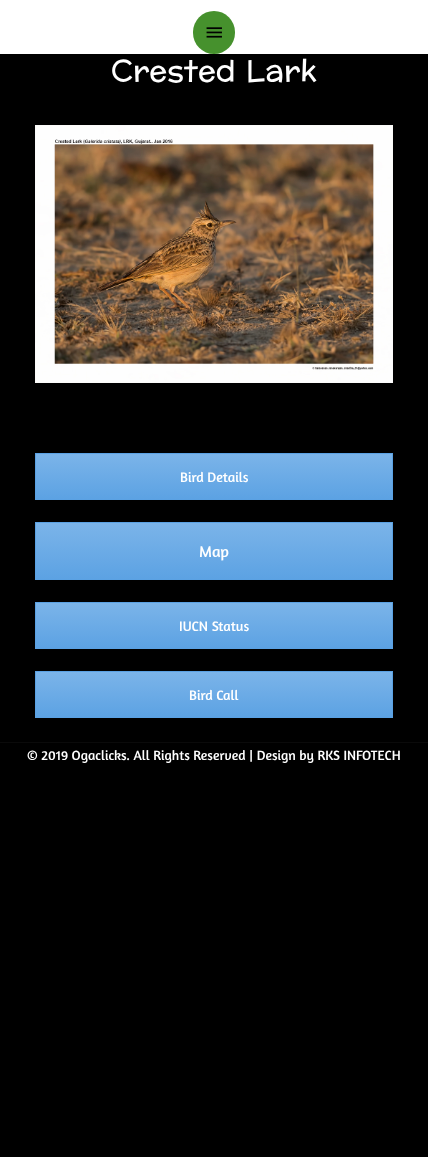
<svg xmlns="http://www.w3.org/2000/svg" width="428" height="1157">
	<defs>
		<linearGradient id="g1" gradientUnits="userSpaceOnUse" x1="214" y1="454" x2="214" y2="499"><stop offset="0" stop-color="#7BB4E9" /><stop offset="1" stop-color="#5CA2E3" /></linearGradient>
		<linearGradient id="g2" gradientUnits="userSpaceOnUse" x1="214" y1="523" x2="214" y2="579"><stop offset="0" stop-color="#7BB4E9" /><stop offset="1" stop-color="#5CA2E3" /></linearGradient>
		<linearGradient id="g3" gradientUnits="userSpaceOnUse" x1="214" y1="603" x2="214" y2="648"><stop offset="0" stop-color="#7BB4E9" /><stop offset="1" stop-color="#5CA2E3" /></linearGradient>
		<linearGradient id="g4" gradientUnits="userSpaceOnUse" x1="214" y1="672" x2="214" y2="717"><stop offset="0" stop-color="#7BB4E9" /><stop offset="1" stop-color="#5CA2E3" /></linearGradient>
	</defs>
	<rect width="100%" height="100%" fill="#000000" />
	<rect x="0" y="0" width="428" height="54" fill="#FFFFFF" />
	<rect x="193" y="11" width="42" height="43" rx="21" fill="#46912D" />
	<image x="206" y="27" width="16" height="11" href="assets/img1.png" />
	<text x="111" y="81" font-family="Preahvihear" font-size="30" fill="#FFFFFF">Crested Lark</text>
	<image x="35" y="125" width="358" height="258" href="assets/img2.png" />
	<rect x="36" y="454" width="356" height="45" fill="url(#g1)" />
	<rect x="35.5" y="453.5" width="357" height="46" fill="none" stroke="#5AA1E3" />
	<text x="180" y="482" font-family="Amaranth" font-size="14" fill="#FFFFFF">Bird Details</text>
	<rect x="36" y="523" width="356" height="56" fill="url(#g2)" />
	<rect x="35.5" y="522.5" width="357" height="57" fill="none" stroke="#5AA1E3" />
	<text x="199" y="557" font-family="Amaranth" font-size="16" fill="#FFFFFF">Map</text>
	<rect x="36" y="603" width="356" height="45" fill="url(#g3)" />
	<rect x="35.5" y="602.5" width="357" height="46" fill="none" stroke="#5AA1E3" />
	<text x="179" y="631" font-family="Amaranth" font-size="14" fill="#FFFFFF">IUCN Status</text>
	<rect x="36" y="672" width="356" height="45" fill="url(#g4)" />
	<rect x="35.5" y="671.5" width="357" height="46" fill="none" stroke="#5AA1E3" />
	<text x="189" y="700" font-family="Amaranth" font-size="14" fill="#FFFFFF">Bird Call</text>
	<rect x="0" y="742" width="428" height="1" fill="#0A0A0A" />
	<text x="27" y="760" font-family="Amaranth" font-size="13.7" fill="#FFFFFF">© 2019 Ogaclicks. All Rights Reserved | Design by RKS INFOTECH</text>
</svg>
